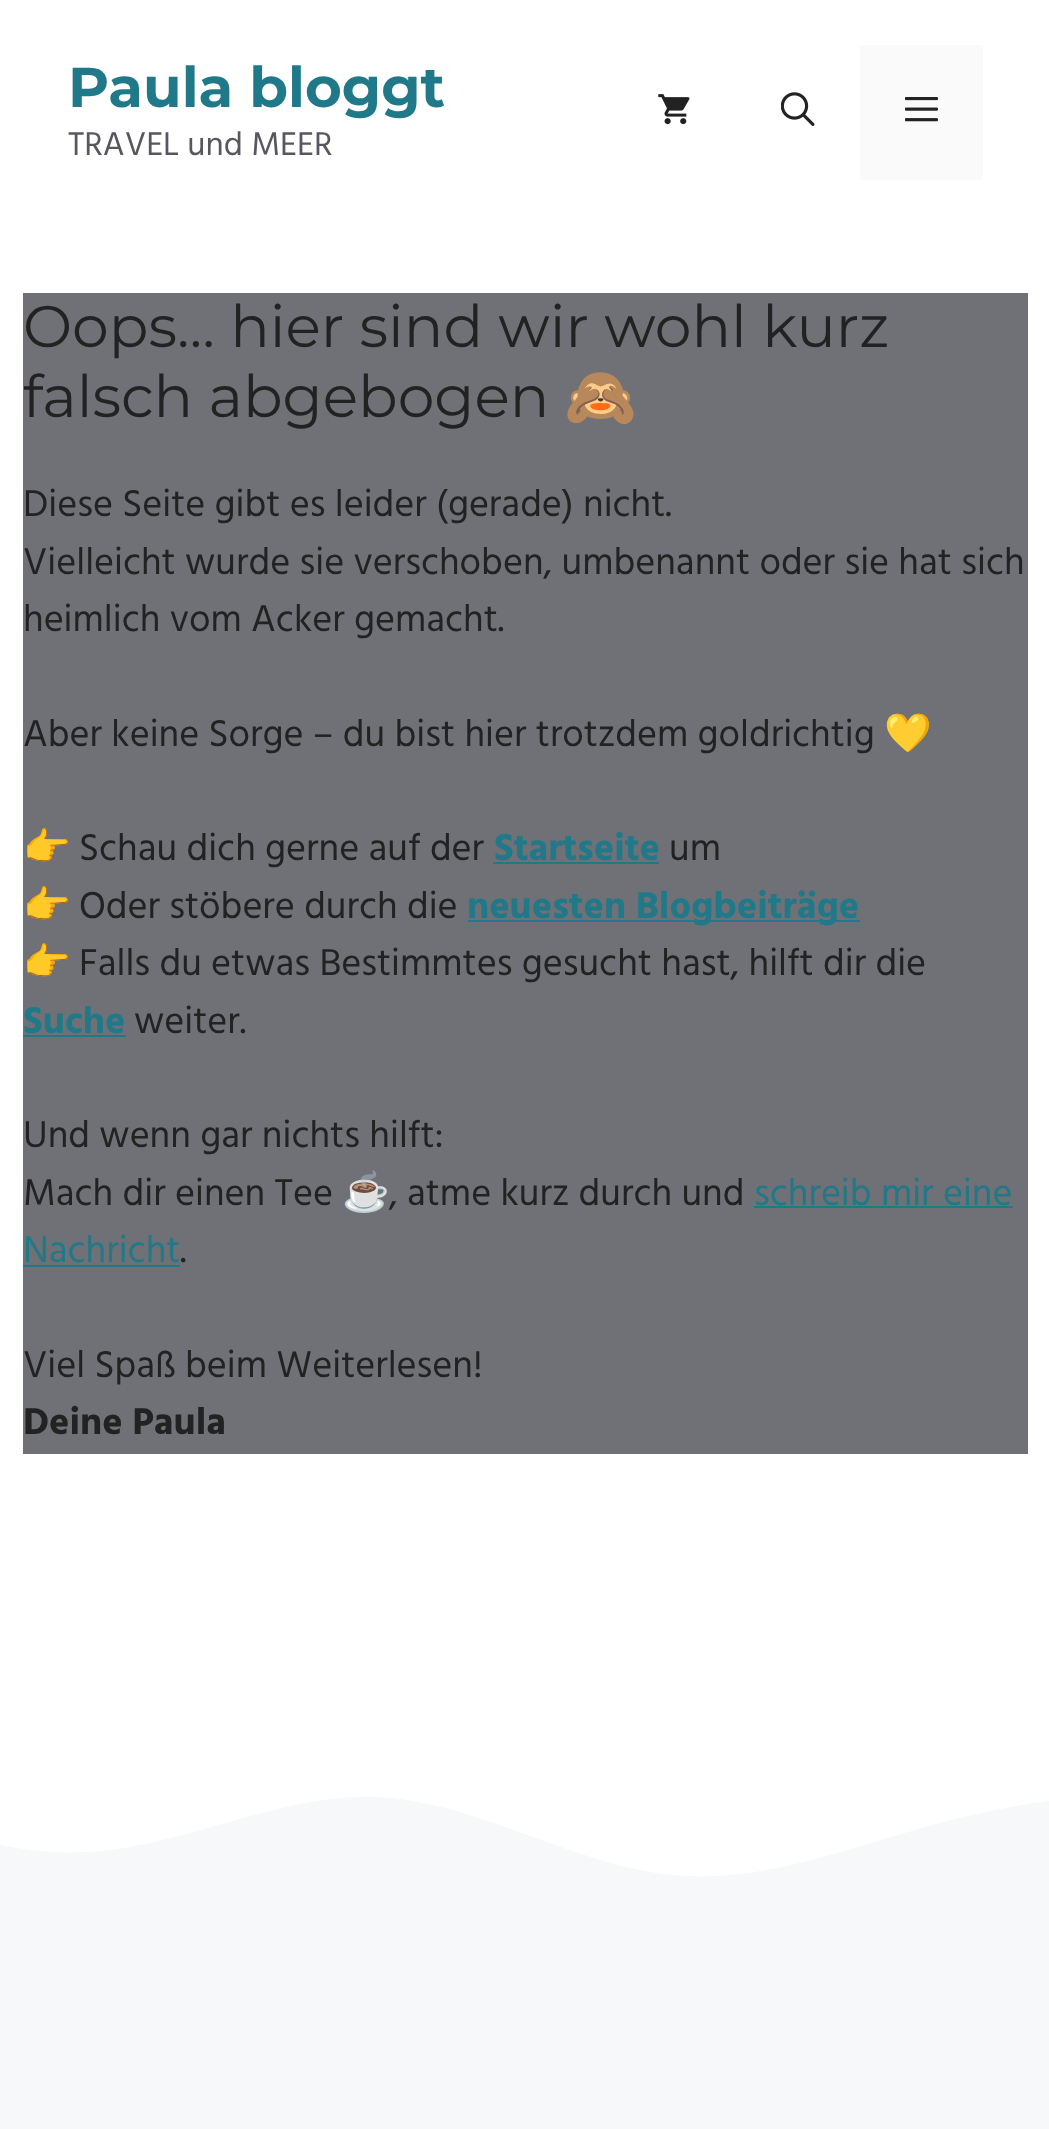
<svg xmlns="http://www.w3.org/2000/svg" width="1049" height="2129">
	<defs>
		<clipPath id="clip1"><rect x="0" y="1744" width="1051" height="135" /></clipPath>
	</defs>
	<rect width="100%" height="100%" fill="#F7F8F9" />
	<rect x="0" y="0" width="1049" height="1744" fill="#FFFFFF" />
	<text x="68" y="107" font-family="Montserrat" font-size="56.25" font-weight="700" fill="#1F7989">Paula bloggt</text>
	<text x="68" y="155" font-family="Hind" font-size="33.75" fill="#575760">TRAVEL und MEER</text>
	<image x="658" y="94" width="32" height="31" href="assets/img1.png" />
	<image x="781" y="92" width="34" height="34" href="assets/img2.png" />
	<rect x="860" y="45" width="123" height="135" fill="#FAFAFA" />
	<image x="905" y="97" width="33" height="25" href="assets/img3.png" />
	<rect x="23" y="293" width="1005" height="1161" fill="#707077" />
	<g font-family="Montserrat" font-size="58.5" fill="#222222">
		<text x="23" y="347">Oops… hier sind wir wohl kurz</text>
		<text x="23" y="417">falsch abgebogen</text>
	</g>
	<text x="564" y="417" font-family="Noto Color Emoji" font-size="58.5" fill="#222222">🙈</text>
	<g font-family="Hind" font-size="38.25" fill="#222222">
		<text x="23" y="516">Diese Seite gibt es leider (gerade) nicht.</text>
		<text x="23" y="574">Vielleicht wurde sie verschoben, umbenannt oder sie hat sich</text>
		<text x="23" y="631">heimlich vom Acker gemacht.</text>
		<text x="23" y="746">Aber keine Sorge – du bist hier trotzdem goldrichtig</text>
	</g>
	<g font-family="Noto Color Emoji" font-size="38.25" fill="#222222">
		<text x="884" y="746">💛</text>
		<text x="23" y="860">👉</text>
	</g>
	<text x="79" y="860" font-family="Hind" font-size="38.25" fill="#222222">Schau dich gerne auf der</text>
	<text x="494" y="860" font-family="Hind" font-size="38.25" font-weight="700" fill="#1F7989">Startseite</text>
	<rect x="493" y="862" width="166" height="2" fill="#1F7989" />
	<text x="669" y="860" font-family="Hind" font-size="38.25" fill="#222222">um</text>
	<text x="23" y="918" font-family="Noto Color Emoji" font-size="38.25" fill="#222222">👉</text>
	<text x="79" y="918" font-family="Hind" font-size="38.25" fill="#222222">Oder stöbere durch die</text>
	<rect x="468" y="920" width="392" height="2" fill="#1F7989" />
	<text x="467" y="918" font-family="Hind" font-size="38.25" font-weight="700" fill="#1F7989">neuesten Blogbeiträge</text>
	<text x="23" y="975" font-family="Noto Color Emoji" font-size="38.25" fill="#222222">👉</text>
	<text x="79" y="975" font-family="Hind" font-size="38.25" fill="#222222">Falls du etwas Bestimmtes gesucht hast, hilft dir die</text>
	<text x="23" y="1033" font-family="Hind" font-size="38.25" font-weight="700" fill="#1F7989">Suche</text>
	<rect x="23" y="1035" width="103" height="2" fill="#1F7989" />
	<g font-family="Hind" font-size="38.25" fill="#222222">
		<text x="134" y="1033">weiter.</text>
		<text x="23" y="1147">Und wenn gar nichts hilft:</text>
		<text x="23" y="1205">Mach dir einen Tee</text>
	</g>
	<text x="342" y="1205" font-family="Noto Color Emoji" font-size="38.25" fill="#222222">☕</text>
	<text x="389" y="1205" font-family="Hind" font-size="38.25" fill="#222222">, atme kurz durch und</text>
	<text x="754" y="1205" font-family="Hind" font-size="38.25" fill="#1F7989">schreib mir eine</text>
	<rect x="754" y="1206" width="259" height="2" fill="#1F7989" />
	<text x="23" y="1262" font-family="Hind" font-size="38.25" fill="#1F7989">Nachricht</text>
	<rect x="23" y="1265" width="157" height="2" fill="#1F7989" />
	<g font-family="Hind" font-size="38.25" fill="#222222">
		<text x="180" y="1262">.</text>
		<text x="23" y="1377">Viel Spaß beim Weiterlesen!</text>
	</g>
	<text x="23" y="1434" font-family="Hind" font-size="38.25" font-weight="700" fill="#222222">Deine Paula</text>
	<g clip-path="url(#clip1)">
		<path d="M-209 1765L-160 1788C-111 1811-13 1857 85 1852C183 1848 281 1792 379 1797C477 1802 576 1866 674 1875C772 1885 870 1838 968 1816C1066 1792 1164 1792 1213 1792H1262V1742H-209Z" fill="#FFFFFF" />
	</g>
</svg>
